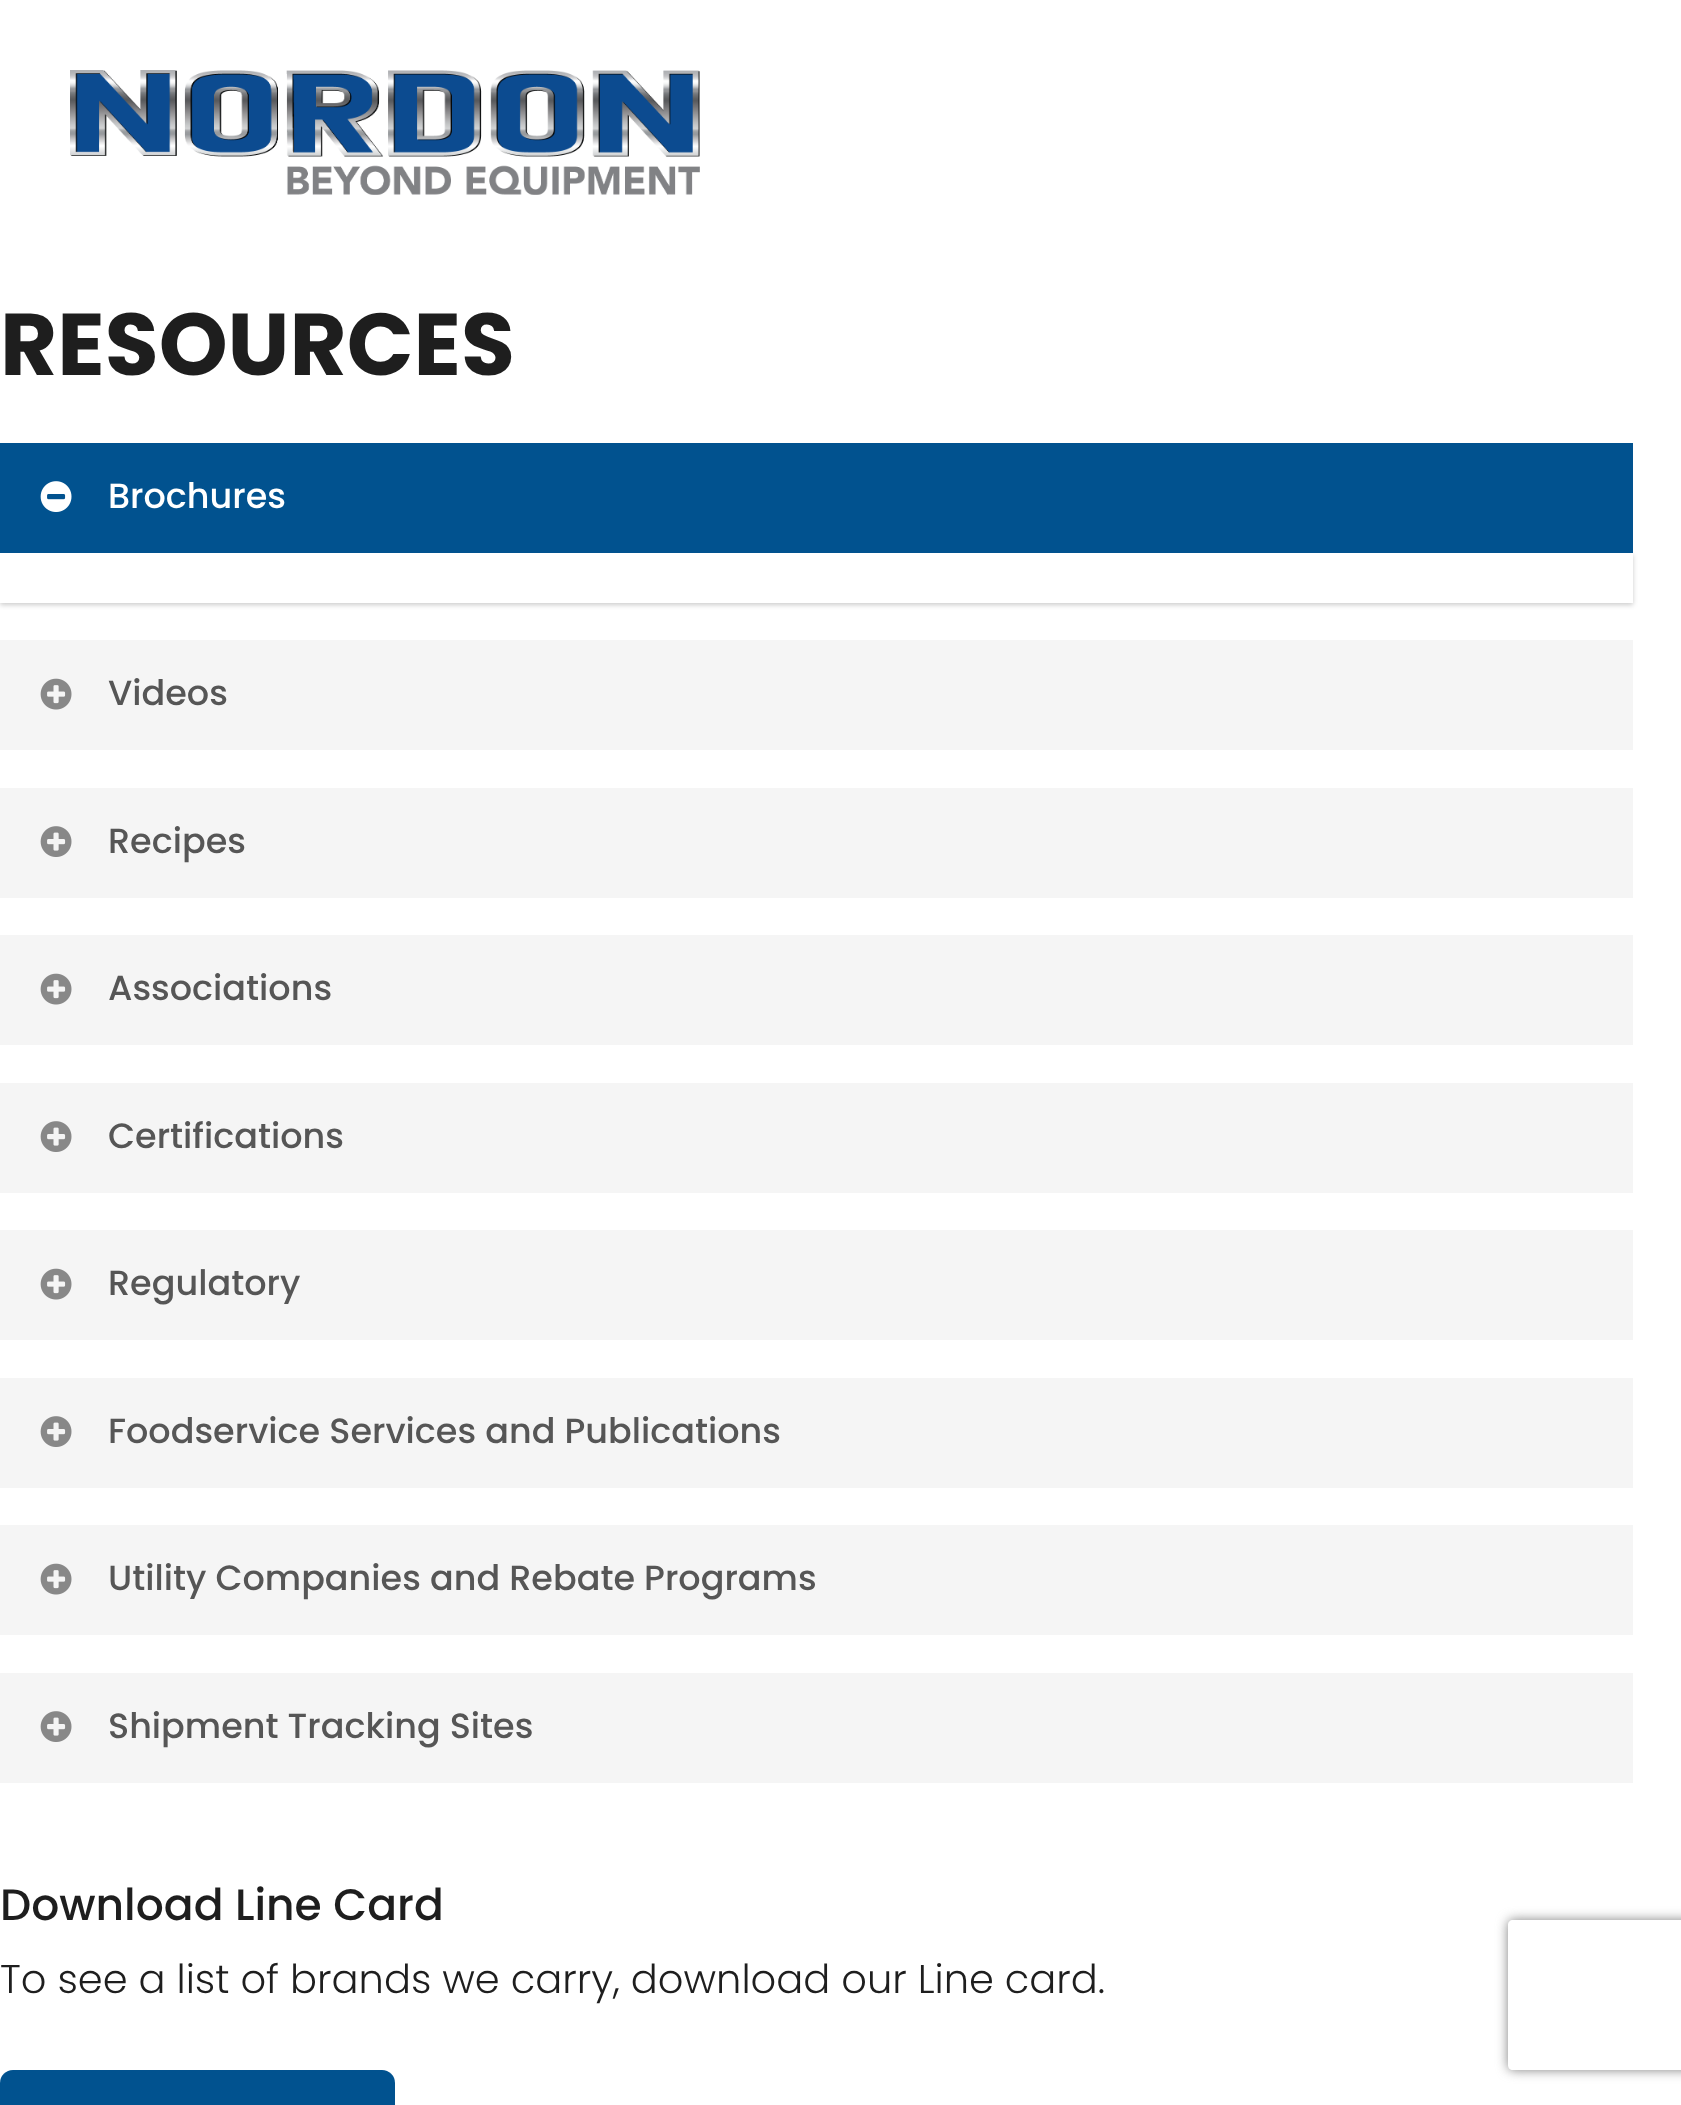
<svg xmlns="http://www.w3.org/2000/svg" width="1681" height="2105">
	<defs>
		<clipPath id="clip1"><path d="M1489 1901H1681V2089H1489ZM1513 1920H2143C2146 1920 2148 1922 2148 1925V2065C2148 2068 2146 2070 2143 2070H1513C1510 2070 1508 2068 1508 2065V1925C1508 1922 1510 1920 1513 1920Z" clip-rule="evenodd" /></clipPath>
	</defs>
	<rect width="100%" height="100%" fill="#FFFFFF" />
	<image x="70" y="70" width="630" height="125" href="assets/img1.png" />
	<text x="0" y="375" font-family="Poppins" font-size="87.75" font-weight="700" fill="#1E1E1E">RESOURCES</text>
	<rect x="0" y="555" width="1633" height="50" fill="#000000" fill-opacity="0.2" filter="blur(2.5px)" />
	<rect x="0" y="443" width="1633" height="110" fill="#01528F" />
	<image x="40" y="481" width="32" height="31" href="assets/img2.png" />
	<text x="108" y="508" font-family="Poppins" font-size="35" font-weight="500" fill="#FFFFFF">Brochures</text>
	<rect x="0" y="553" width="1633" height="50" fill="#FFFFFF" />
	<rect x="0" y="640" width="1633" height="110" fill="#F5F5F5" />
	<image x="40" y="678" width="32" height="32" href="assets/img3.png" />
	<text x="108" y="705" font-family="Poppins" font-size="35" font-weight="500" fill="#565656">Videos</text>
	<rect x="0" y="788" width="1633" height="110" fill="#F5F5F5" />
	<image x="40" y="826" width="32" height="31" href="assets/img4.png" />
	<text x="108" y="853" font-family="Poppins" font-size="35" font-weight="500" fill="#565656">Recipes</text>
	<rect x="0" y="935" width="1633" height="110" fill="#F5F5F5" />
	<image x="40" y="973" width="32" height="32" href="assets/img3.png" />
	<text x="108" y="1000" font-family="Poppins" font-size="35" font-weight="500" fill="#565656">Associations</text>
	<rect x="0" y="1083" width="1633" height="110" fill="#F5F5F5" />
	<image x="40" y="1121" width="32" height="31" href="assets/img4.png" />
	<text x="108" y="1148" font-family="Poppins" font-size="35" font-weight="500" fill="#565656">Certifications</text>
	<rect x="0" y="1230" width="1633" height="110" fill="#F5F5F5" />
	<image x="40" y="1268" width="32" height="32" href="assets/img3.png" />
	<text x="108" y="1295" font-family="Poppins" font-size="35" font-weight="500" fill="#565656">Regulatory</text>
	<rect x="0" y="1378" width="1633" height="110" fill="#F5F5F5" />
	<image x="40" y="1416" width="32" height="31" href="assets/img4.png" />
	<text x="108" y="1443" font-family="Poppins" font-size="35" font-weight="500" fill="#565656">Foodservice Services and Publications</text>
	<rect x="0" y="1525" width="1633" height="110" fill="#F5F5F5" />
	<image x="40" y="1563" width="32" height="32" href="assets/img3.png" />
	<text x="108" y="1590" font-family="Poppins" font-size="35" font-weight="500" fill="#565656">Utility Companies and Rebate Programs</text>
	<rect x="0" y="1673" width="1633" height="110" fill="#F5F5F5" />
	<image x="40" y="1711" width="32" height="31" href="assets/img4.png" />
	<text x="108" y="1738" font-family="Poppins" font-size="35" font-weight="500" fill="#565656">Shipment Tracking Sites</text>
	<text x="0" y="1920" font-family="Poppins" font-size="44" font-weight="500" fill="#1E1E1E">Download Line Card</text>
	<text x="0" y="1993" font-family="Poppins" font-size="40" font-weight="300" fill="#1E1E1E">To see a list of brands we carry, download our Line card.</text>
	<rect x="0" y="2070" width="395" height="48" rx="13" fill="#01528F" />
	<g clip-path="url(#clip1)">
		<rect x="1508" y="1920" width="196" height="150" rx="5" fill="#808080" filter="blur(6px)" />
	</g>
</svg>
